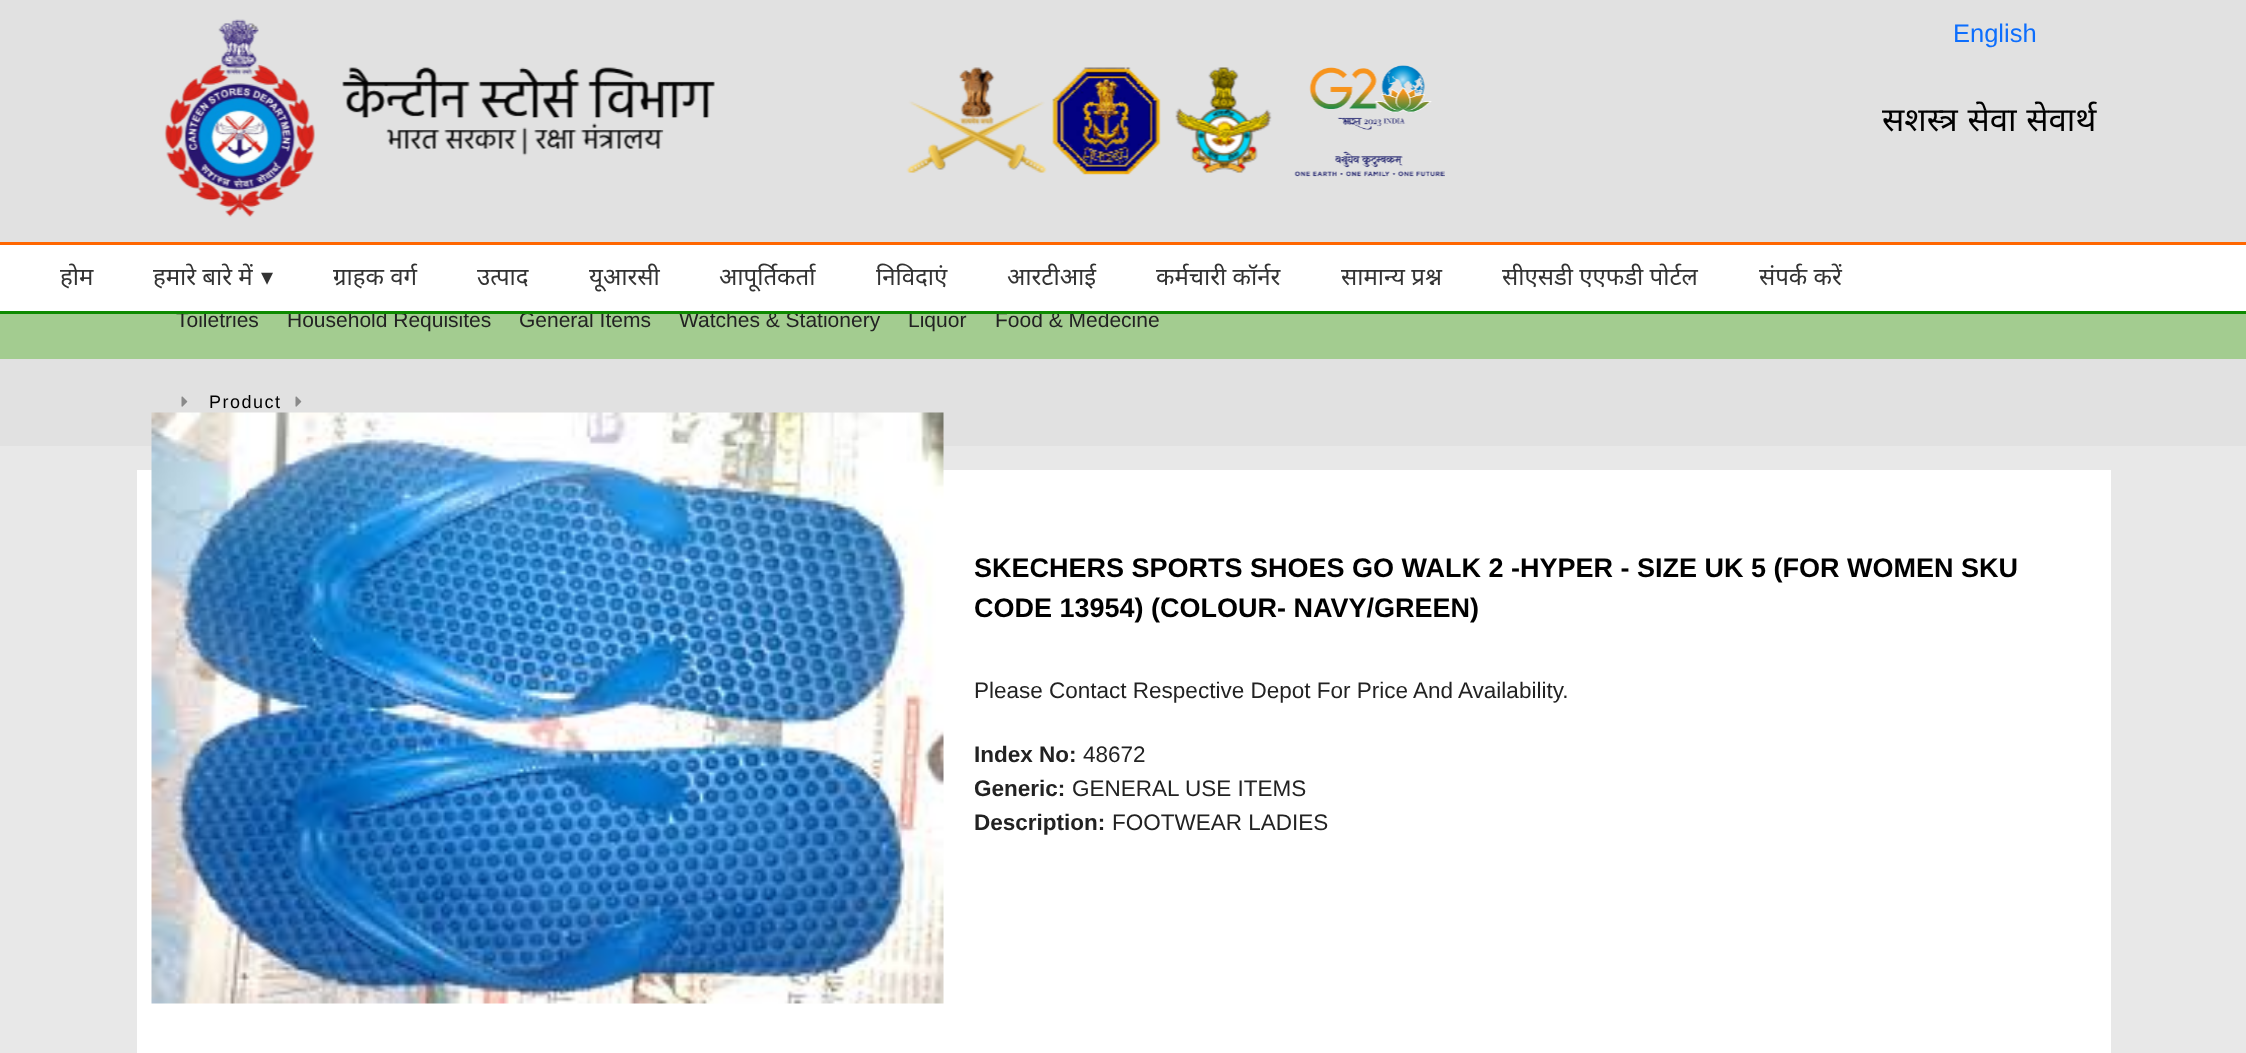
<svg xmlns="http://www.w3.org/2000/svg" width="2246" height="1053">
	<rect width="100%" height="100%" fill="#E8E8E8" />
	<rect x="0" y="0" width="2246" height="242" fill="#E1E1E1" />
	<image x="164" y="19" width="551" height="198" href="assets/img1.png" />
	<text x="1953" y="42" font-family="Liberation Sans" font-size="25.5" fill="#0D6EFD">English</text>
	<image x="906" y="67" width="366" height="108" href="assets/img2.png" />
	<image x="1294" y="65" width="151" height="112" href="assets/img3.png" />
	<text x="1882" y="131" word-spacing="1" font-family="Noto Sans" font-size="33" fill="#000000">सशस्त्र सेवा सेवार्थ</text>
	<rect x="0" y="245" width="2246" height="66" fill="#FFFFFF" />
	<rect x="0" y="242" width="2246" height="3" fill="#FF6600" />
	<rect x="0" y="314" width="2246" height="45" fill="#A3CC90" />
	<g font-family="Liberation Sans" font-size="21" fill="#222222">
		<text x="176" y="327">Toiletries</text>
		<text x="287" y="327">Household Requisites</text>
		<text x="519" y="327">General Items</text>
		<text x="679" y="327">Watches &amp; Stationery</text>
		<text x="908" y="327">Liquor</text>
		<text x="995" y="327">Food &amp; Medecine</text>
	</g>
	<rect x="0" y="311" width="2246" height="3" fill="#0D8A00" />
	<g font-family="Noto Sans" font-size="24" fill="#333333">
		<text x="60" y="285">होम</text>
		<text x="153" y="285">हमारे बारे में</text>
	</g>
	<text x="261" y="285" font-family="DejaVu Sans" font-size="24" fill="#333333">▾</text>
	<g font-family="Noto Sans" font-size="24" fill="#333333">
		<text x="333" y="285">ग्राहक वर्ग</text>
		<text x="477" y="285">उत्पाद</text>
		<text x="589" y="285">यूआरसी</text>
		<text x="719" y="285">आपूर्तिकर्ता</text>
		<text x="876" y="285">निविदाएं</text>
		<text x="1007" y="285">आरटीआई</text>
		<text x="1156" y="285">कर्मचारी कॉर्नर</text>
		<text x="1341" y="285">सामान्य प्रश्न</text>
		<text x="1502" y="285">सीएसडी एएफडी पोर्टल</text>
		<text x="1759" y="285">संपर्क करें</text>
	</g>
	<rect x="0" y="359" width="2246" height="87" fill="#E1E1E1" />
	<image x="181" y="396" width="7" height="11" href="assets/img4.png" />
	<text x="209" y="408" font-family="Liberation Sans" font-size="18" letter-spacing="1.5" fill="#000000">Product</text>
	<image x="295" y="396" width="7" height="11" href="assets/img4.png" />
	<rect x="137" y="470" width="1974" height="583" fill="#FFFFFF" />
	<image x="151" y="412" width="793" height="592" href="assets/img5.png" />
	<g font-family="Liberation Sans" font-size="27" font-weight="700" fill="#000000">
		<text x="974" y="577">SKECHERS SPORTS SHOES GO WALK 2 -HYPER - SIZE UK 5 (FOR WOMEN SKU</text>
		<text x="974" y="617">CODE 13954) (COLOUR- NAVY/GREEN)</text>
	</g>
	<text x="974" y="698" font-family="Liberation Sans" font-size="22.5" fill="#222222">Please Contact Respective Depot For Price And Availability.</text>
	<text x="974" y="762" font-family="Liberation Sans" font-size="22.5" font-weight="700" fill="#222222">Index No:</text>
	<text x="1083" y="762" font-family="Liberation Sans" font-size="22.5" fill="#222222">48672</text>
	<text x="974" y="796" font-family="Liberation Sans" font-size="22.5" font-weight="700" fill="#222222">Generic:</text>
	<text x="1072" y="796" font-family="Liberation Sans" font-size="22.5" fill="#222222">GENERAL USE ITEMS</text>
	<text x="974" y="830" font-family="Liberation Sans" font-size="22.5" font-weight="700" fill="#222222">Description:</text>
	<text x="1112" y="830" font-family="Liberation Sans" font-size="22.5" fill="#222222">FOOTWEAR LADIES</text>
</svg>
